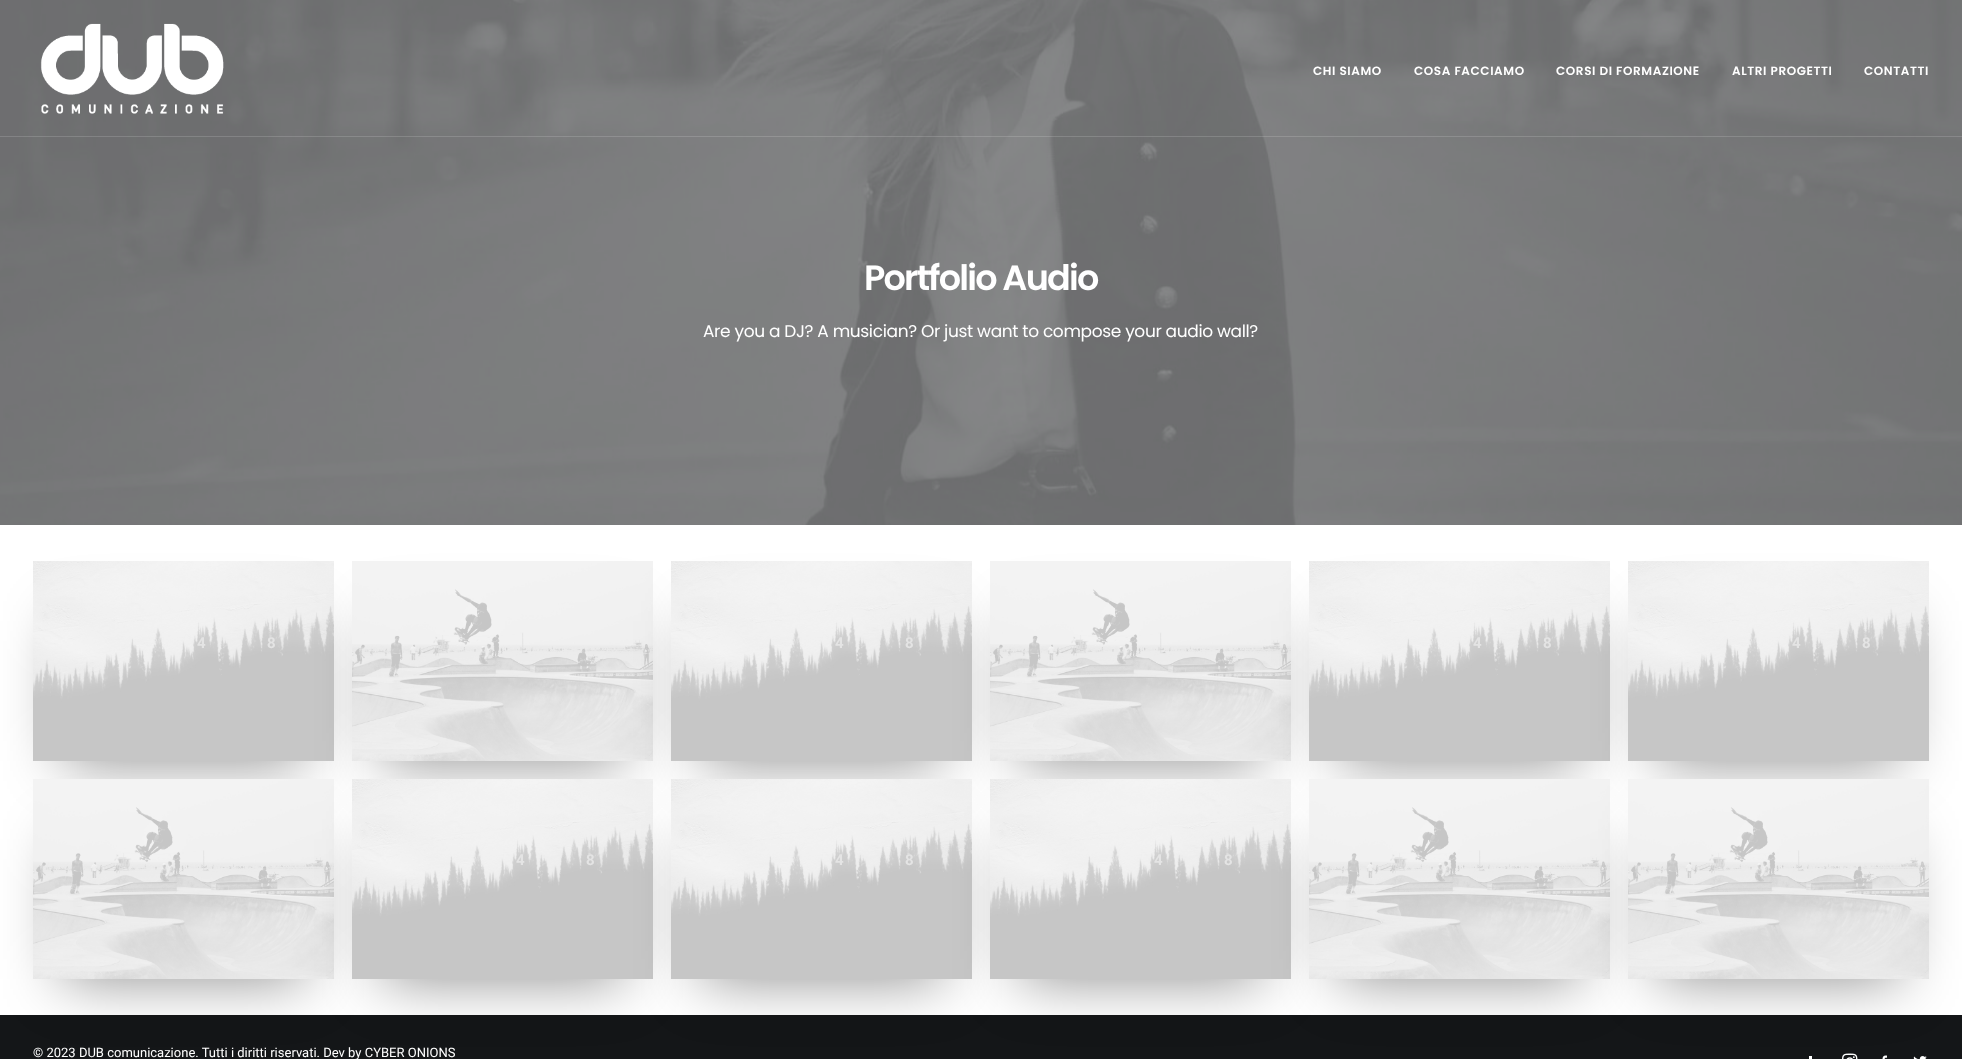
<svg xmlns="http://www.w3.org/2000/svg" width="1962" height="1059">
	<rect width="100%" height="100%" fill="#141618" />
	<image x="0" y="0" width="1962" height="525" href="assets/img2.png" />
	<rect x="0" y="136" width="1962" height="1" fill="#FFFFFF" fill-opacity="0.15" />
	<image x="40" y="23" width="184" height="91" href="assets/img1.png" />
	<g font-family="Poppins" font-size="12" font-weight="600" letter-spacing="0.6" fill="#FFFFFF">
		<text x="1313" y="75">CHI SIAMO</text>
		<text x="1414" y="75">COSA FACCIAMO</text>
		<text x="1556" y="75">CORSI DI FORMAZIONE</text>
		<text x="1732" y="75">ALTRI PROGETTI</text>
		<text x="1864" y="75">CONTATTI</text>
	</g>
	<text x="864" y="290" font-family="Poppins" font-size="35" font-weight="600" letter-spacing="-1.75" fill="#FFFFFF">Portfolio Audio</text>
	<text x="703" y="337" font-family="Poppins" font-size="17" letter-spacing="-0.35" fill="#FFFFFF">Are you a DJ? A musician? Or just want to compose your audio wall?</text>
	<rect x="0" y="525" width="1962" height="490" fill="#FFFFFF" />
	<rect x="63" y="621" width="241" height="140" fill="#000000" fill-opacity="0.45" filter="blur(30px)" />
	<image x="33" y="561" width="301" height="200" href="assets/img3.png" />
	<g font-family="Roboto" font-size="15" font-weight="700" fill="#E4E4E4">
		<text x="197" y="648">4</text>
		<text x="267" y="648">8</text>
	</g>
	<rect x="382" y="621" width="241" height="140" fill="#000000" fill-opacity="0.45" filter="blur(30px)" />
	<image x="352" y="561" width="301" height="200" href="assets/img4.png" />
	<rect x="701" y="621" width="241" height="140" fill="#000000" fill-opacity="0.45" filter="blur(30px)" />
	<image x="671" y="561" width="301" height="200" href="assets/img3.png" />
	<g font-family="Roboto" font-size="15" font-weight="700" fill="#E4E4E4">
		<text x="835" y="648">4</text>
		<text x="905" y="648">8</text>
	</g>
	<rect x="1020" y="621" width="241" height="140" fill="#000000" fill-opacity="0.45" filter="blur(30px)" />
	<image x="990" y="561" width="301" height="200" href="assets/img4.png" />
	<rect x="1339" y="621" width="241" height="140" fill="#000000" fill-opacity="0.45" filter="blur(30px)" />
	<image x="1309" y="561" width="301" height="200" href="assets/img3.png" />
	<g font-family="Roboto" font-size="15" font-weight="700" fill="#E4E4E4">
		<text x="1473" y="648">4</text>
		<text x="1543" y="648">8</text>
	</g>
	<rect x="1658" y="621" width="241" height="140" fill="#000000" fill-opacity="0.45" filter="blur(30px)" />
	<image x="1628" y="561" width="301" height="200" href="assets/img3.png" />
	<g font-family="Roboto" font-size="15" font-weight="700" fill="#E4E4E4">
		<text x="1792" y="648">4</text>
		<text x="1862" y="648">8</text>
	</g>
	<rect x="63" y="839" width="241" height="140" fill="#000000" fill-opacity="0.45" filter="blur(30px)" />
	<image x="33" y="779" width="301" height="200" href="assets/img5.png" />
	<rect x="382" y="839" width="241" height="140" fill="#000000" fill-opacity="0.45" filter="blur(30px)" />
	<image x="352" y="779" width="301" height="200" href="assets/img6.png" />
	<g font-family="Roboto" font-size="15" font-weight="700" fill="#E4E4E4">
		<text x="516" y="865">4</text>
		<text x="586" y="865">8</text>
	</g>
	<rect x="701" y="839" width="241" height="140" fill="#000000" fill-opacity="0.45" filter="blur(30px)" />
	<image x="671" y="779" width="301" height="200" href="assets/img6.png" />
	<g font-family="Roboto" font-size="15" font-weight="700" fill="#E4E4E4">
		<text x="835" y="865">4</text>
		<text x="905" y="865">8</text>
	</g>
	<rect x="1020" y="839" width="241" height="140" fill="#000000" fill-opacity="0.45" filter="blur(30px)" />
	<image x="990" y="779" width="301" height="200" href="assets/img6.png" />
	<g font-family="Roboto" font-size="15" font-weight="700" fill="#E4E4E4">
		<text x="1154" y="865">4</text>
		<text x="1224" y="865">8</text>
	</g>
	<rect x="1339" y="839" width="241" height="140" fill="#000000" fill-opacity="0.45" filter="blur(30px)" />
	<image x="1309" y="779" width="301" height="200" href="assets/img5.png" />
	<rect x="1658" y="839" width="241" height="140" fill="#000000" fill-opacity="0.45" filter="blur(30px)" />
	<image x="1628" y="779" width="301" height="200" href="assets/img5.png" />
	<text x="33" y="1057" font-family="Roboto" font-size="13" fill="#FFFFFF">© 2023 DUB comunicazione. Tutti i diritti riservati. Dev by CYBER ONIONS</text>
	<rect x="1809" y="1056" width="3" height="3" fill="#FFFFFF" />
	<image x="1842" y="1053" width="16" height="6" href="assets/img7.png" />
	<image x="1882" y="1055" width="5" height="4" href="assets/img8.png" />
	<image x="1913" y="1056" width="14" height="3" href="assets/img9.png" />
</svg>
